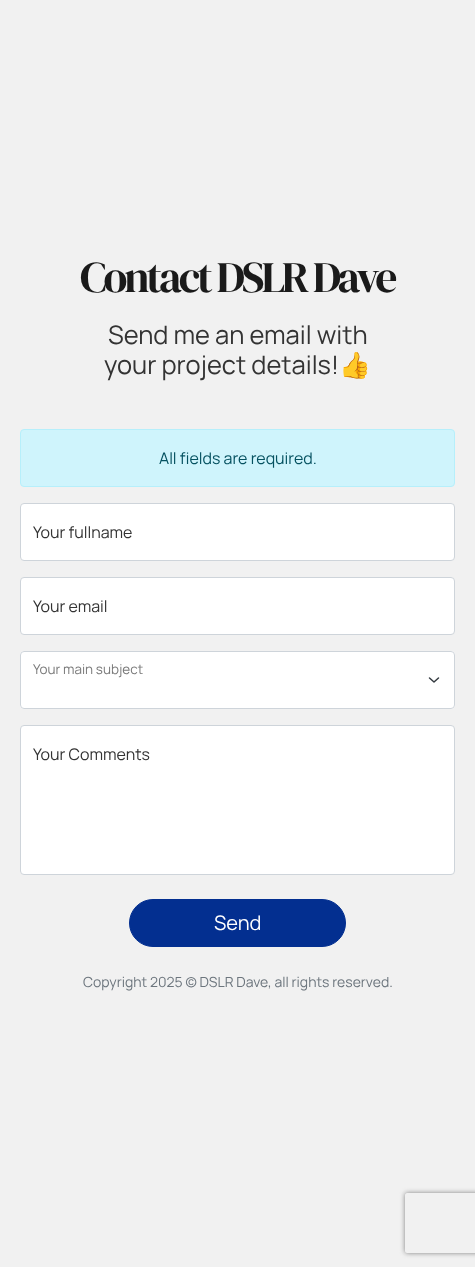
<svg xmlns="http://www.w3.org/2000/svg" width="475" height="1267">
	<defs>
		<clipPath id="clip1"><path d="M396 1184H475V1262H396ZM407 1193H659C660 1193 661 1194 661 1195V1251C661 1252 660 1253 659 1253H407C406 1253 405 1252 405 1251V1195C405 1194 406 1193 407 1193Z" clip-rule="evenodd" /></clipPath>
	</defs>
	<rect width="100%" height="100%" fill="#F1F1F1" />
	<text x="80" y="292" font-family="DM Serif Display" font-size="43.75" letter-spacing="-3" fill="#1A1A1A">Contact DSLR Dave</text>
	<g font-family="Manrope" font-size="25.5" fill="#333333">
		<text x="108" y="344">Send me an email with</text>
		<text x="104" y="374">your project details!</text>
	</g>
	<text x="339" y="374" font-family="Noto Color Emoji" font-size="25.5" fill="#333333">👍</text>
	<rect x="20.5" y="429.5" width="434" height="57" rx="3.5" fill="#CFF4FC" stroke="#B6EFFB" />
	<text x="159" y="464" font-family="Manrope" font-size="16" fill="#055160">All fields are required.</text>
	<rect x="20.5" y="503.5" width="434" height="57" rx="3.5" fill="#FFFFFF" stroke="#CED4DA" />
	<text x="33" y="538" font-family="Manrope" font-size="16" fill="#333333">Your fullname</text>
	<rect x="20.5" y="577.5" width="434" height="57" rx="3.5" fill="#FFFFFF" stroke="#CED4DA" />
	<text x="33" y="612" font-family="Manrope" font-size="16" fill="#333333">Your email</text>
	<rect x="20" y="651" width="435" height="58" rx="4" fill="#FFFFFF" />
	<path d="M429.5 678L434 682L438.5 678" fill="none" stroke="#343A40" stroke-width="1.5" stroke-linecap="round" stroke-linejoin="round" />
	<rect x="20.5" y="651.5" width="434" height="57" rx="3.5" fill="none" stroke="#CED4DA" />
	<text x="33" y="674" font-family="Manrope" font-size="13.5" fill="#7A7A7A">Your main subject</text>
	<rect x="20.5" y="725.5" width="434" height="149" rx="3.5" fill="#FFFFFF" stroke="#CED4DA" />
	<text x="33" y="760" font-family="Manrope" font-size="16" fill="#333333">Your Comments</text>
	<rect x="129.5" y="899.5" width="216" height="47" rx="23.5" fill="#032F90" stroke="#032F90" />
	<text x="214" y="930" font-family="Manrope" font-size="20" fill="#FFFFFF">Send</text>
	<g clip-path="url(#clip1)">
		<rect x="405" y="1193" width="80" height="60" rx="2" fill="#808080" filter="blur(2.5px)" />
	</g>
	<text x="83" y="987" font-family="Manrope" font-size="14" fill="#6C757D">Copyright 2025 © DSLR Dave, all rights reserved.</text>
</svg>
